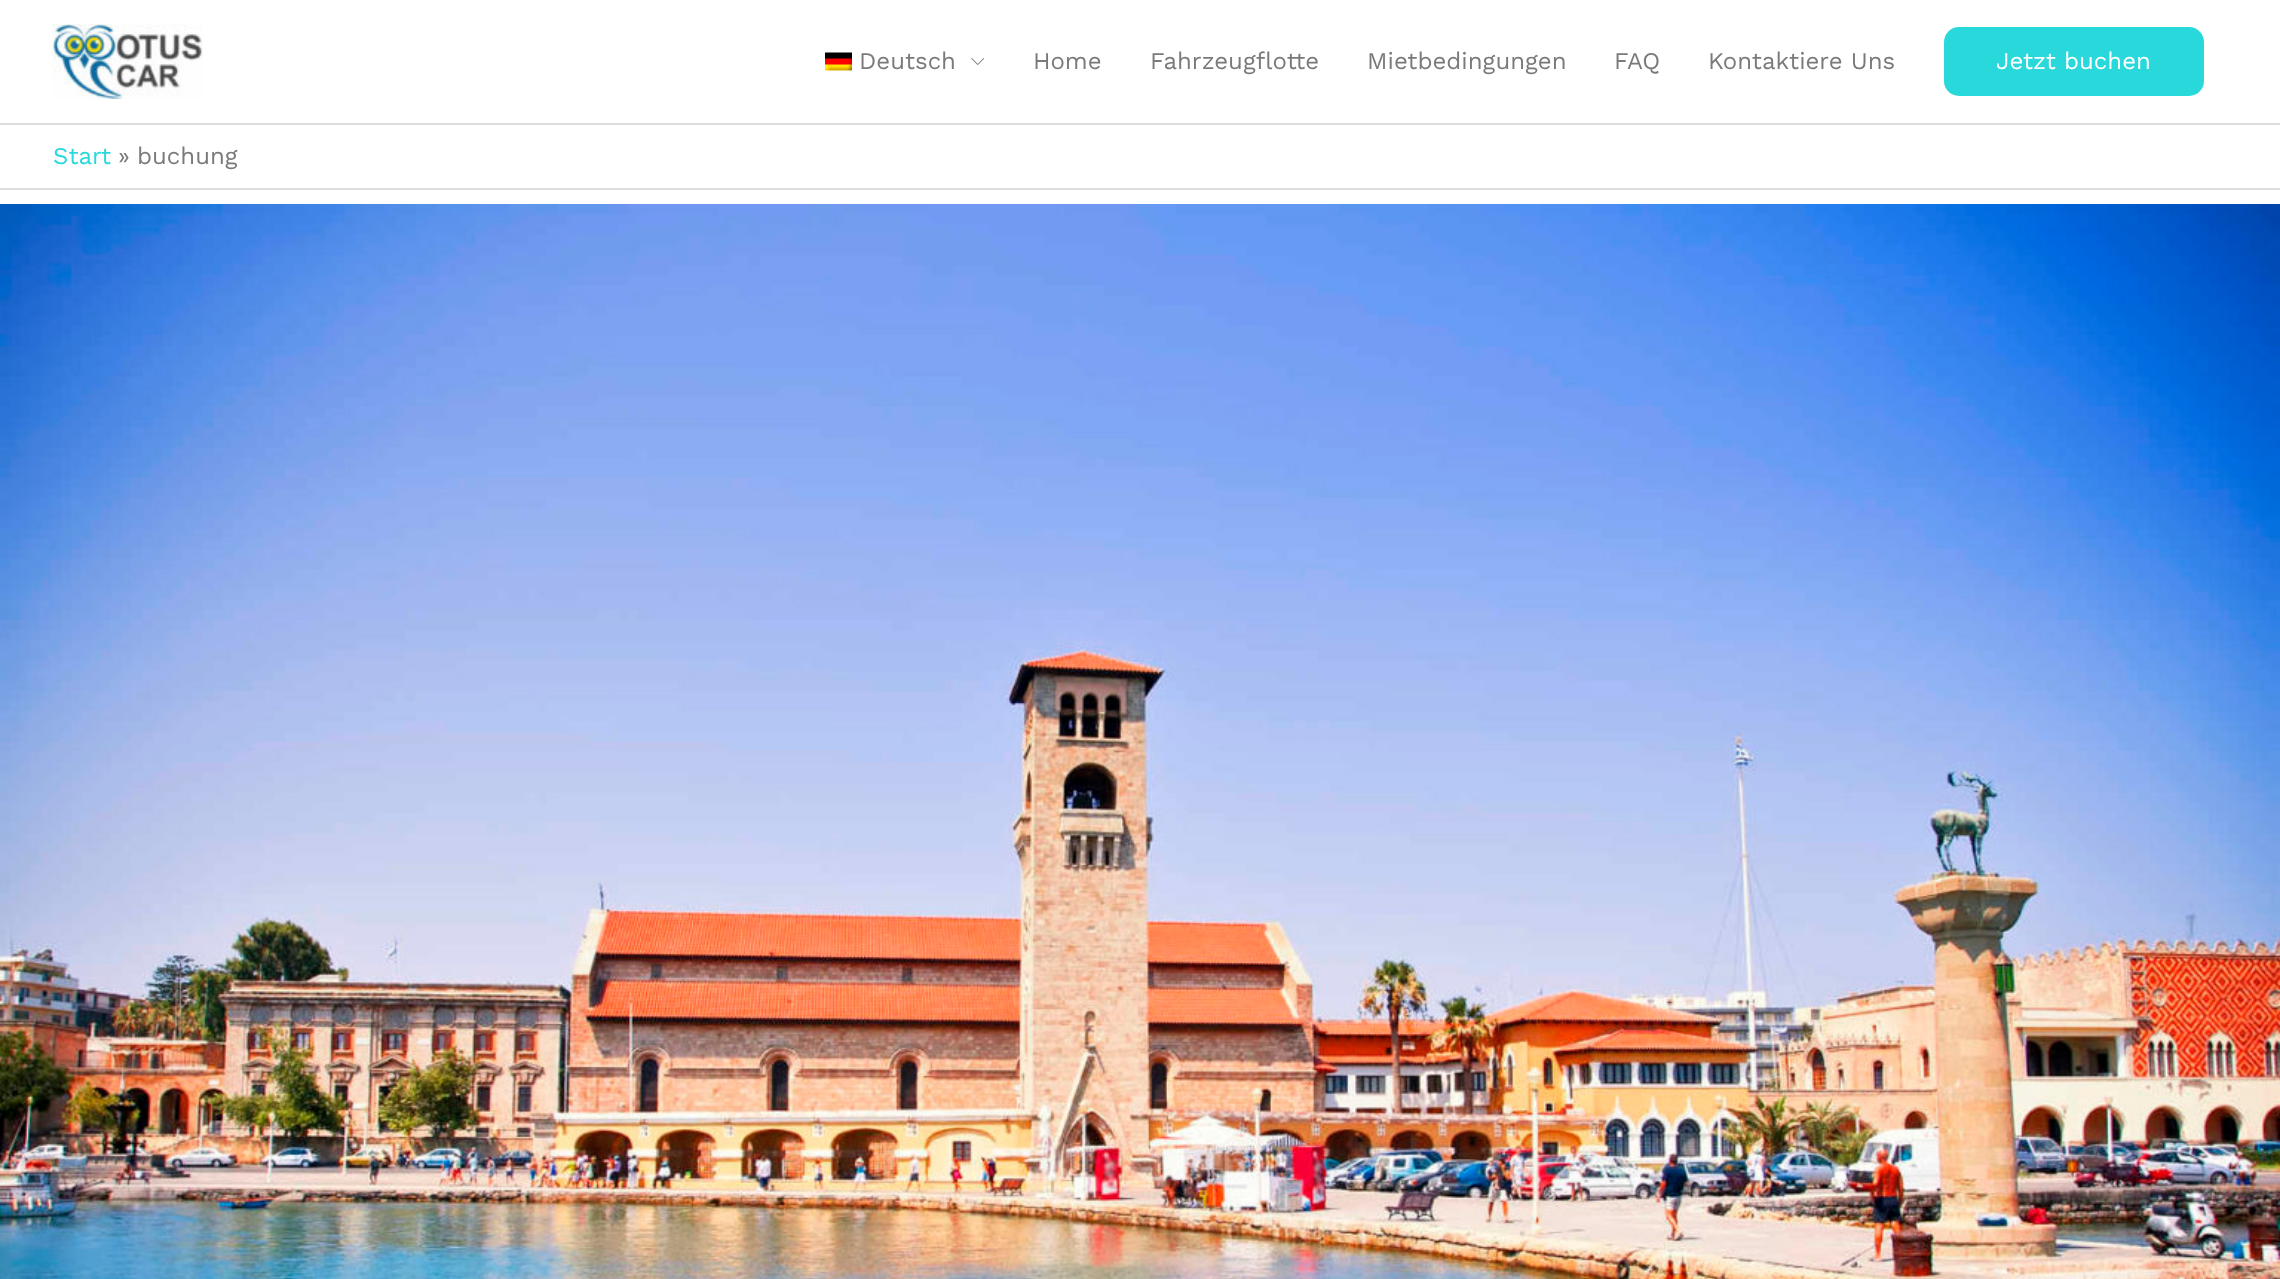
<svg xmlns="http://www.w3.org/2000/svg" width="2280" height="1279">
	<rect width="100%" height="100%" fill="#FFFFFF" />
	<rect x="0" y="123" width="2280" height="2" fill="#DDDDDD" />
	<image x="52" y="24" width="151" height="75" href="assets/img1.png" />
	<image x="825" y="52" width="27" height="19" href="assets/img2.png" />
	<text x="859" y="69" font-family="Work Sans" font-size="24" fill="#7A7A7A">Deutsch</text>
	<image x="971" y="58" width="14" height="7" href="assets/img3.png" />
	<g font-family="Work Sans" font-size="24" fill="#7A7A7A">
		<text x="1033" y="69">Home</text>
		<text x="1150" y="69">Fahrzeugflotte</text>
		<text x="1367" y="69">Mietbedingungen</text>
		<text x="1614" y="69">FAQ</text>
		<text x="1708" y="69">Kontaktiere Uns</text>
	</g>
	<rect x="1944" y="27" width="260" height="69" rx="15" fill="#29D8DB" />
	<text x="1996" y="69" font-family="Work Sans" font-size="24" fill="#FFFFFF">Jetzt buchen</text>
	<rect x="0" y="188" width="2280" height="2" fill="#DDDDDD" />
	<text x="53" y="164" font-family="Work Sans" font-size="24" fill="#29D8DB">Start</text>
	<g font-family="Work Sans" font-size="24" fill="#7A7A7A">
		<text x="118" y="164">»</text>
		<text x="137" y="164">buchung</text>
	</g>
	<image x="0" y="204" width="2280" height="1075" href="assets/img4.png" />
</svg>
